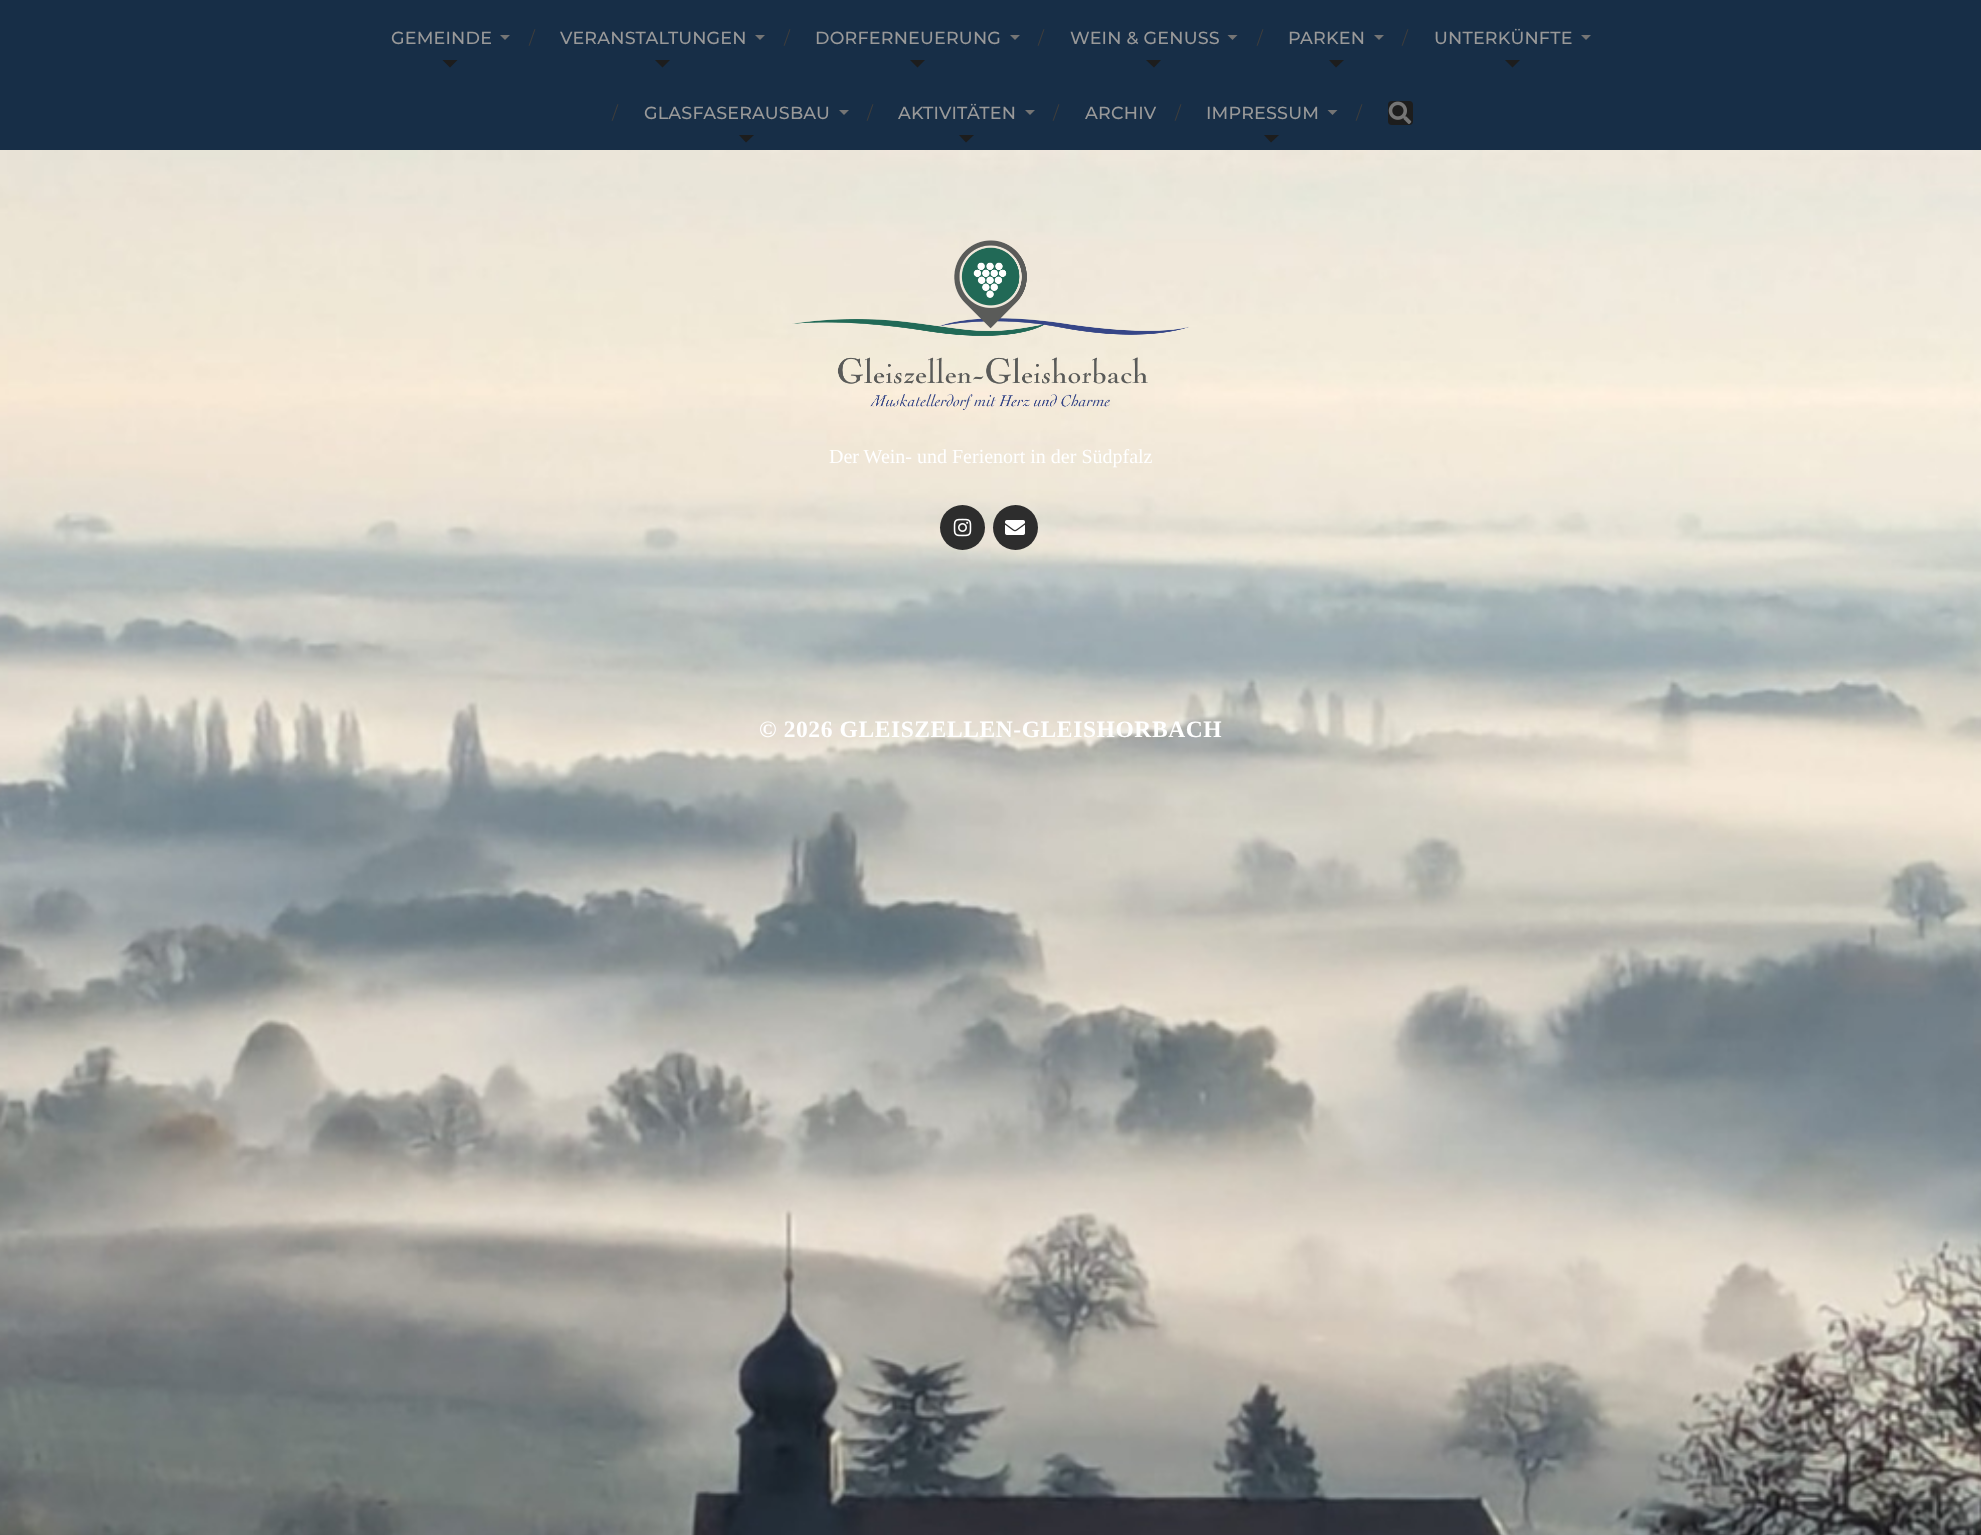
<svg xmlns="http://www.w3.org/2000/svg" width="1981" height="1535">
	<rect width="100%" height="100%" fill="#172E47" />
	<text x="391" y="44" font-family="Montserrat" font-size="17.5" font-weight="100" letter-spacing="0.2" fill="#999999">GEMEINDE</text>
	<path d="M500 35H510L505 40Z" fill="#757575" />
	<path d="M442.5 60H457.5L450 67.5Z" fill="#1D1D1D" />
	<text x="529" y="44" font-family="'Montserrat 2'" font-size="17.5" font-weight="100" fill="#3D3D3D">/</text>
	<text x="560" y="44" font-family="Montserrat" font-size="17.5" font-weight="100" letter-spacing="0.2" fill="#999999">VERANSTALTUNGEN</text>
	<path d="M755 35H765L760 40Z" fill="#757575" />
	<path d="M655 60H670L662.5 67.5Z" fill="#1D1D1D" />
	<text x="784" y="44" font-family="'Montserrat 2'" font-size="17.5" font-weight="100" fill="#3D3D3D">/</text>
	<text x="815" y="44" font-family="Montserrat" font-size="17.5" font-weight="100" letter-spacing="0.2" fill="#999999">DORFERNEUERUNG</text>
	<path d="M1010 35H1020L1015 40Z" fill="#757575" />
	<path d="M910 60H925L917.5 67.5Z" fill="#1D1D1D" />
	<text x="1038" y="44" font-family="'Montserrat 2'" font-size="17.5" font-weight="100" fill="#3D3D3D">/</text>
	<text x="1070" y="44" font-family="Montserrat" font-size="17.5" font-weight="100" letter-spacing="0.2" fill="#999999">WEIN &amp; GENUSS</text>
	<path d="M1227.5 35H1237.5L1232.5 40Z" fill="#757575" />
	<path d="M1146 60H1161L1154 67.5Z" fill="#1D1D1D" />
	<text x="1257" y="44" font-family="'Montserrat 2'" font-size="17.5" font-weight="100" fill="#3D3D3D">/</text>
	<text x="1288" y="44" font-family="Montserrat" font-size="17.5" font-weight="100" letter-spacing="0.2" fill="#999999">PARKEN</text>
	<path d="M1374 35H1384L1379 40Z" fill="#757575" />
	<path d="M1329 60H1344L1336 67.5Z" fill="#1D1D1D" />
	<text x="1402" y="44" font-family="'Montserrat 2'" font-size="17.5" font-weight="100" fill="#3D3D3D">/</text>
	<text x="1434" y="44" font-family="Montserrat" font-size="17.5" font-weight="100" letter-spacing="0.2" fill="#999999">UNTERKÜNFTE</text>
	<path d="M1581 35H1591L1586 40Z" fill="#757575" />
	<path d="M1505 60H1520L1512.5 67.5Z" fill="#1D1D1D" />
	<text x="612" y="119" font-family="'Montserrat 2'" font-size="17.5" font-weight="100" fill="#3D3D3D">/</text>
	<text x="644" y="119" font-family="Montserrat" font-size="17.5" font-weight="100" letter-spacing="0.2" fill="#999999">GLASFASERAUSBAU</text>
	<path d="M839 110H849L844 115Z" fill="#757575" />
	<path d="M739 135H754L746 142.5Z" fill="#1D1D1D" />
	<text x="867" y="119" font-family="'Montserrat 2'" font-size="17.5" font-weight="100" fill="#3D3D3D">/</text>
	<text x="898" y="119" font-family="Montserrat" font-size="17.5" font-weight="100" letter-spacing="0.2" fill="#999999">AKTIVITÄTEN</text>
	<path d="M1025 110H1035L1030 115Z" fill="#757575" />
	<path d="M959 135H974L966 142.5Z" fill="#1D1D1D" />
	<text x="1053" y="119" font-family="'Montserrat 2'" font-size="17.5" font-weight="100" fill="#3D3D3D">/</text>
	<text x="1085" y="119" font-family="Montserrat" font-size="17.5" font-weight="100" letter-spacing="0.2" fill="#999999">ARCHIV</text>
	<text x="1175" y="119" font-family="'Montserrat 2'" font-size="17.5" font-weight="100" fill="#3D3D3D">/</text>
	<text x="1206" y="119" font-family="Montserrat" font-size="17.5" font-weight="100" letter-spacing="0.2" fill="#999999">IMPRESSUM</text>
	<path d="M1327.5 110H1337.5L1332.5 115Z" fill="#757575" />
	<path d="M1264 135H1279L1271 142.5Z" fill="#1D1D1D" />
	<text x="1356" y="119" font-family="'Montserrat 2'" font-size="17.5" font-weight="100" fill="#3D3D3D">/</text>
	<rect x="1388" y="101" width="25" height="24" rx="4" fill="#1D1D1D" />
	<image x="1388" y="101" width="24" height="23" href="assets/img1.png" />
	<image x="0" y="150" width="1981" height="1385" href="assets/img2.png" />
	<image x="792" y="240" width="397" height="170" href="assets/img3.png" />
	<text x="829" y="463" font-family="Liberation Serif" font-size="20" fill="#FFFFFF">Der Wein- und Ferienort in der Südpfalz</text>
	<circle cx="962.5" cy="527.5" r="22.5" fill="#2D2D2D" />
	<image x="953" y="518" width="19" height="19" href="assets/img4.png" />
	<circle cx="1015.5" cy="527.5" r="22.5" fill="#2D2D2D" />
	<image x="1005" y="520" width="20" height="15" href="assets/img5.png" />
	<text x="759" y="737" font-family="Liberation Serif" font-size="23.5" font-weight="700" letter-spacing="0.6" fill="#FFFFFF">© 2026 GLEISZELLEN-GLEISHORBACH</text>
</svg>
